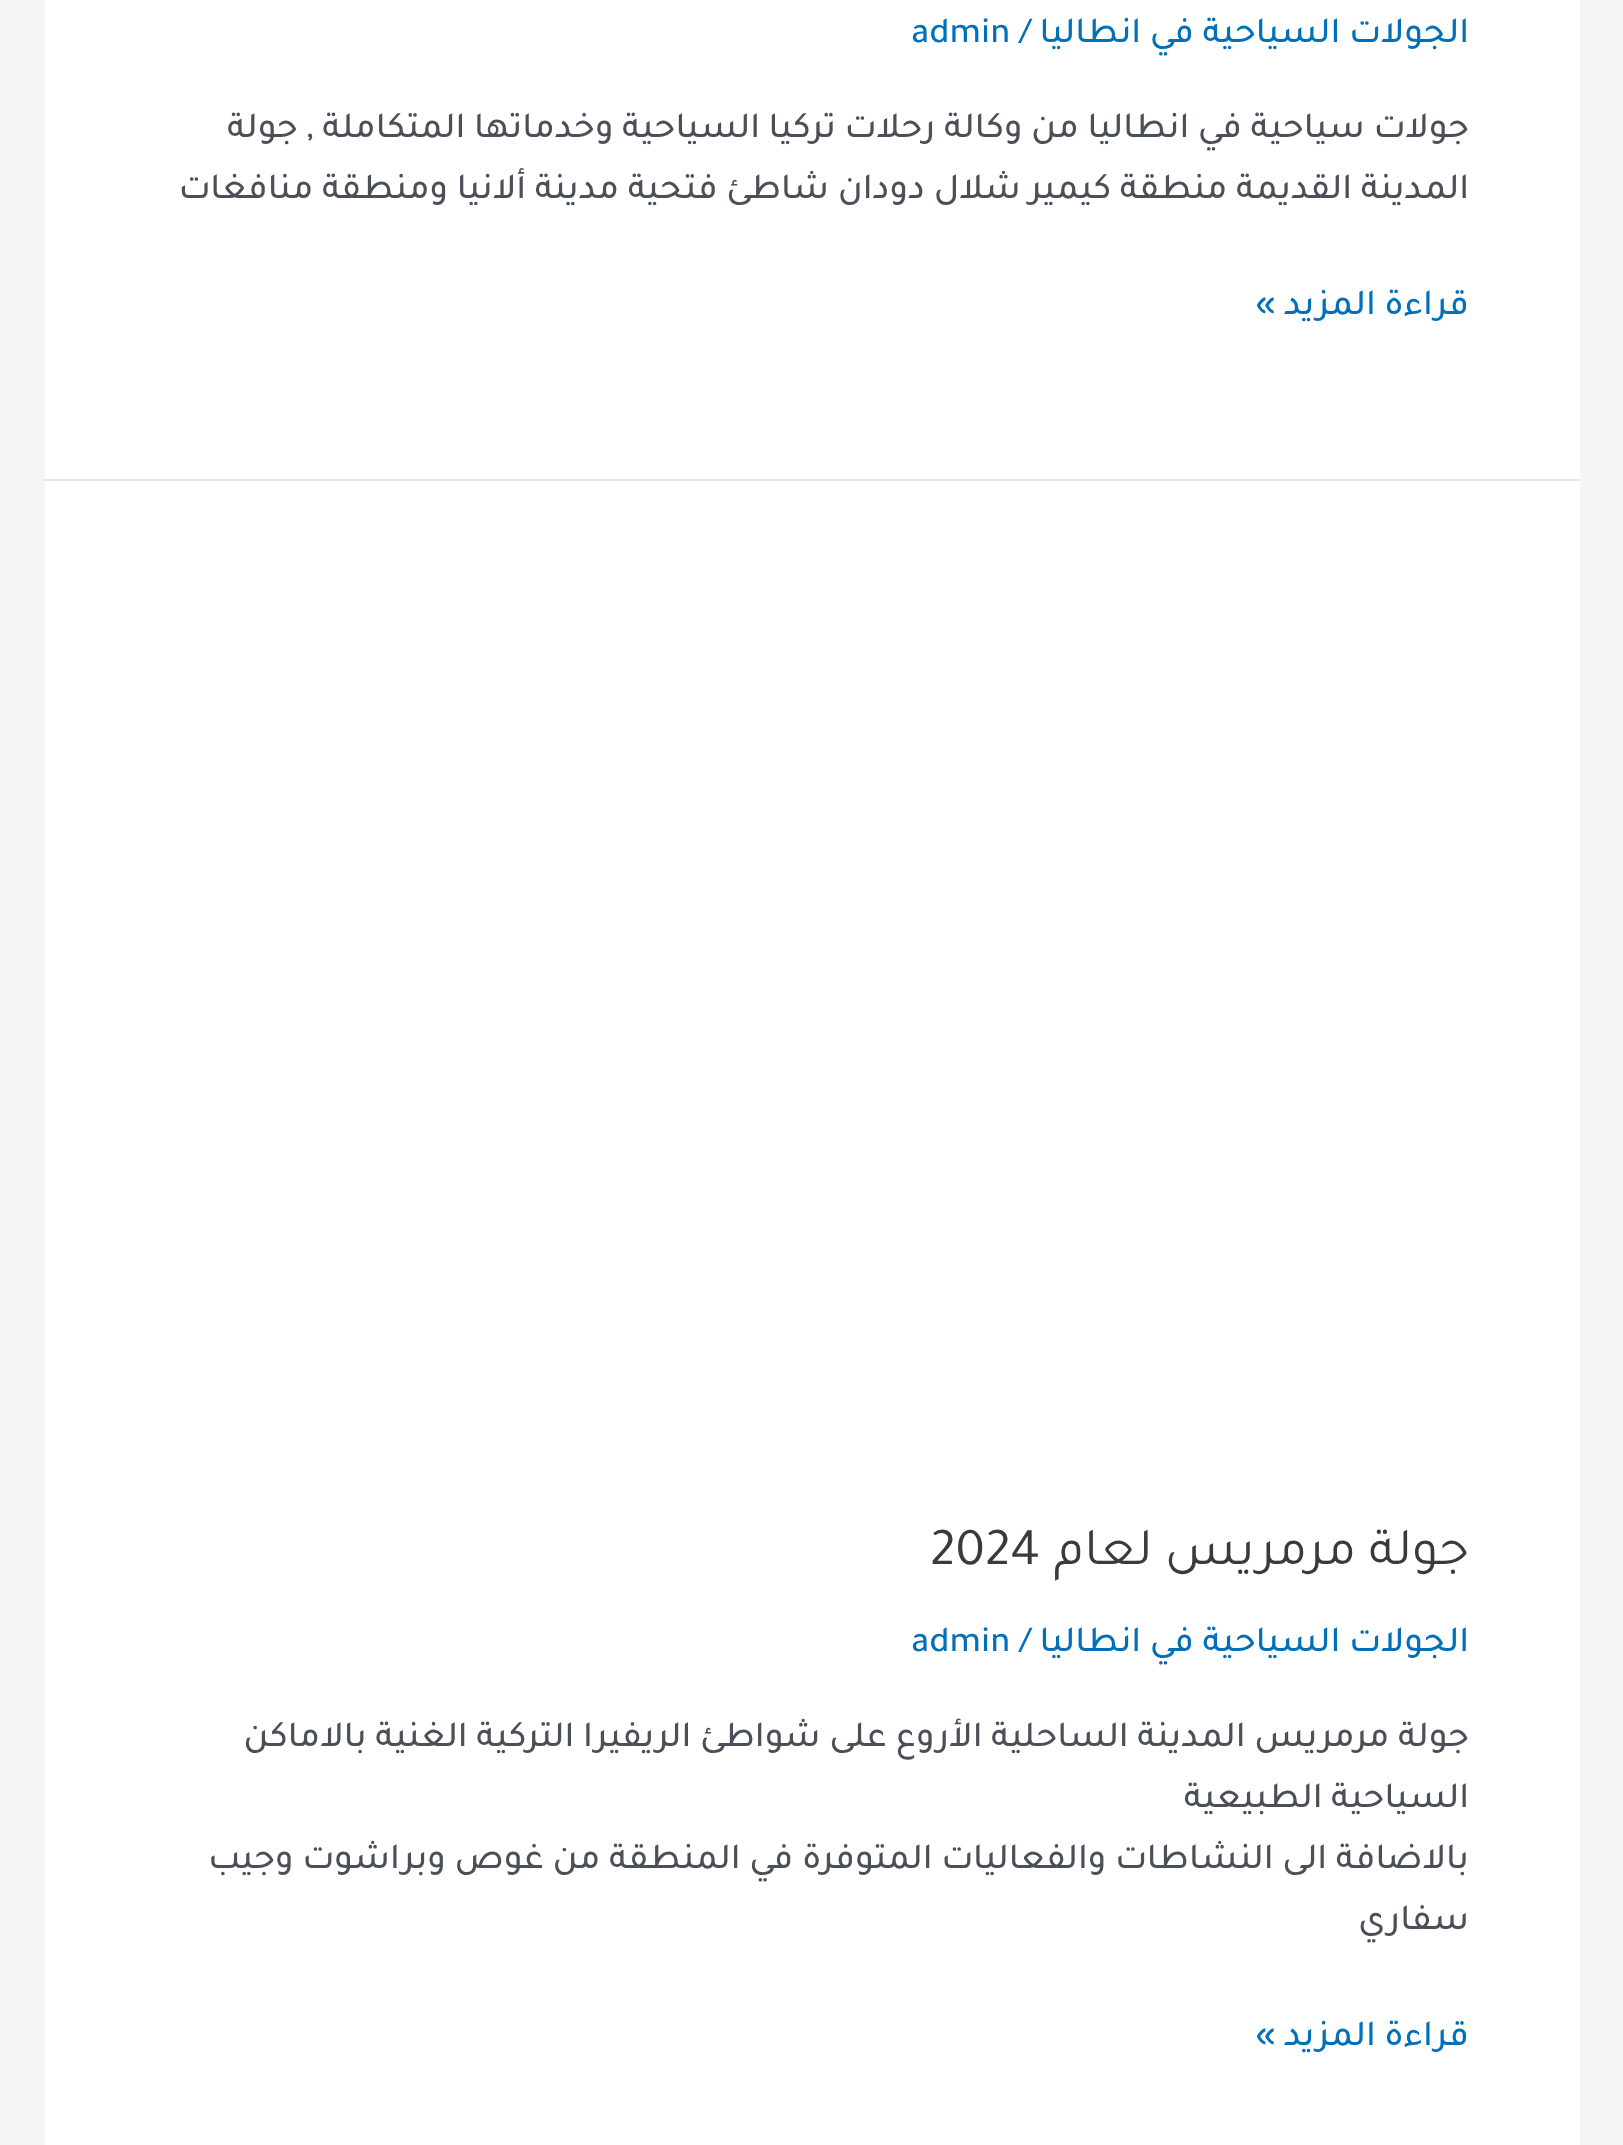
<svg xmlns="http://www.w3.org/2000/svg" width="1623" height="2145">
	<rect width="100%" height="100%" fill="#F5F5F5" />
	<rect x="45" y="0" width="1535" height="2145" fill="#FFFFFF" />
	<rect x="45" y="479" width="1535" height="2" fill="#E5E5E5" />
	<text x="1469" y="42" font-family="Tajawal" font-size="36.95" font-weight="500" direction="rtl" fill="#0170B9">الجولات السياحية في انطاليا</text>
	<g font-family="Tajawal" font-size="36.95" font-weight="500" fill="#0170B9">
		<text x="1019" y="42">/</text>
		<text x="911" y="42">admin</text>
	</g>
	<g font-family="Tajawal" font-size="36.95" font-weight="500" direction="rtl" fill="#4B4F58">
		<text x="1469" y="137">جولات سياحية في انطاليا من وكالة رحلات تركيا السياحية وخدماتها المتكاملة , جولة</text>
		<text x="1469" y="198">المدينة القديمة منطقة كيمير شلال دودان شاطئ فتحية مدينة ألانيا ومنطقة منافغات</text>
	</g>
	<text x="1469" y="314" font-family="Tajawal" font-size="36.95" font-weight="500" direction="rtl" fill="#0170B9">قراءة المزيد »</text>
	<text x="1469" y="1564" font-family="Tajawal" font-size="53.25" direction="rtl" fill="#3A3A3A">جولة مرمريس لعام</text>
	<text x="930" y="1564" font-family="Tajawal" font-size="53.25" fill="#3A3A3A">2024</text>
	<text x="1469" y="1651" font-family="Tajawal" font-size="36.95" font-weight="500" direction="rtl" fill="#0170B9">الجولات السياحية في انطاليا</text>
	<g font-family="Tajawal" font-size="36.95" font-weight="500" fill="#0170B9">
		<text x="1019" y="1651">/</text>
		<text x="911" y="1651">admin</text>
	</g>
	<g font-family="Tajawal" font-size="36.95" font-weight="500" direction="rtl" fill="#4B4F58">
		<text x="1469" y="1746">جولة مرمريس المدينة الساحلية الأروع على شواطئ الريفيرا التركية الغنية بالاماكن</text>
		<text x="1469" y="1807">السياحية الطبيعية</text>
		<text x="1469" y="1868">بالاضافة الى النشاطات والفعاليات المتوفرة في المنطقة من غوص وبراشوت وجيب</text>
		<text x="1469" y="1929">سفاري</text>
	</g>
	<text x="1469" y="2045" font-family="Tajawal" font-size="36.95" font-weight="500" direction="rtl" fill="#0170B9">قراءة المزيد »</text>
</svg>
